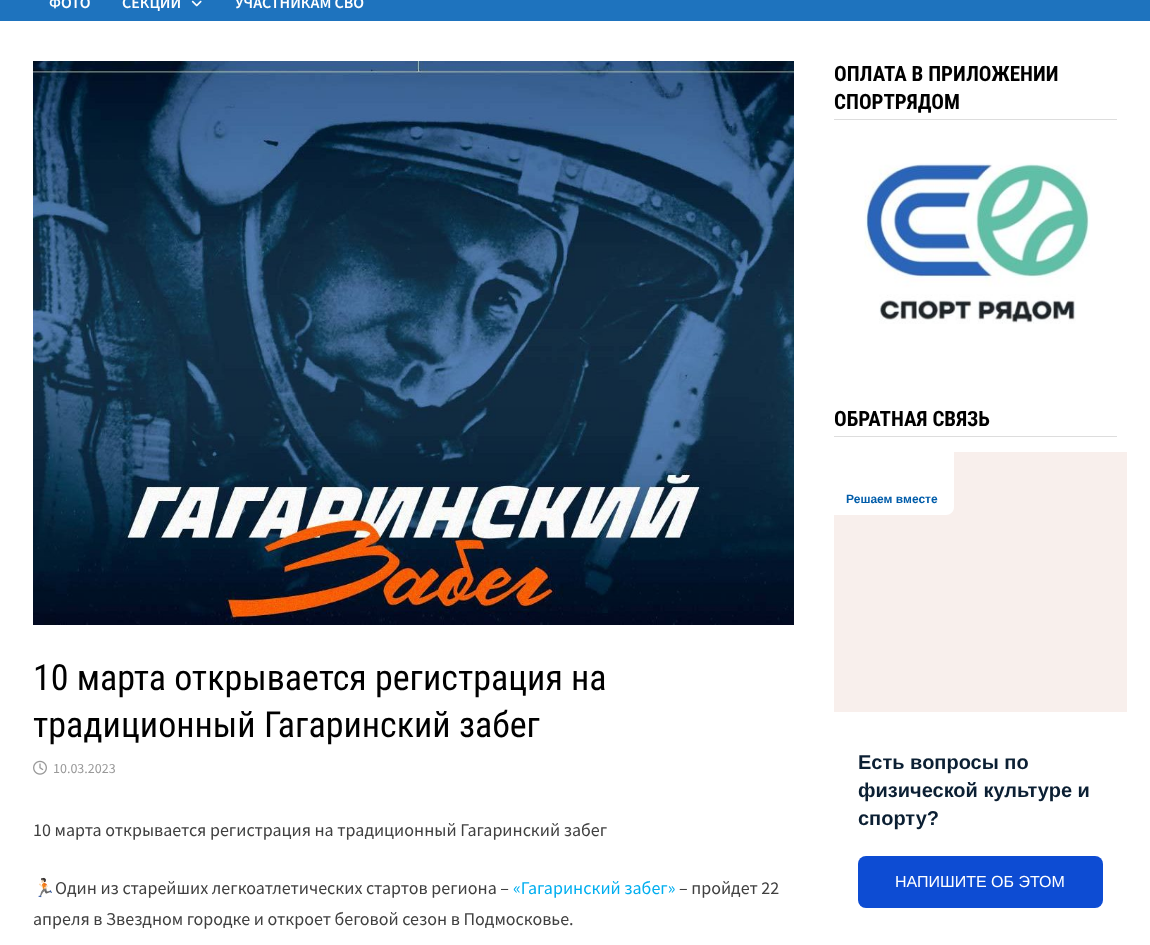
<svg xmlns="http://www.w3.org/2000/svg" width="1150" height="945">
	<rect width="100%" height="100%" fill="#FFFFFF" />
	<rect x="0" y="0" width="1150" height="21" fill="#1E73BE" />
	<g font-family="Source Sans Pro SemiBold" font-size="16" font-weight="600" fill="#FFFFFF">
		<text x="49" y="8">ФОТО</text>
		<text x="122" y="8">СЕКЦИИ</text>
	</g>
	<image x="191" y="0" width="11" height="7" href="assets/img1.png" />
	<text x="235" y="8" font-family="Source Sans Pro SemiBold" font-size="16" font-weight="600" fill="#FFFFFF">УЧАСТНИКАМ СВО</text>
	<image x="33" y="61" width="761" height="564" href="assets/img2.png" />
	<g font-family="Roboto Condensed" font-size="36" fill="#000000">
		<text x="33" y="690">10 марта открывается регистрация на</text>
		<text x="33" y="737">традиционный Гагаринский забег</text>
	</g>
	<image x="33" y="760" width="14" height="15" href="assets/img3.png" />
	<text x="53" y="773" font-family="Source Sans Pro" font-size="14" fill="#999999">10.03.2023</text>
	<text x="33" y="836" font-family="Source Sans Pro" font-size="18" fill="#404040">10 марта открывается регистрация на традиционный Гагаринский забег</text>
	<text x="33" y="894" font-family="Noto Color Emoji" font-size="18" fill="#404040">🏃🏻</text>
	<text x="55" y="894" font-family="Source Sans Pro" font-size="18" fill="#404040">Один из старейших легкоатлетических стартов региона –</text>
	<text x="513" y="894" font-family="Source Sans Pro" font-size="18" fill="#00AEEF">«Гагаринский забег»</text>
	<g font-family="Source Sans Pro" font-size="18" fill="#404040">
		<text x="679" y="894">– пройдет 22</text>
		<text x="33" y="925">апреля в Звездном городке и откроет беговой сезон в Подмосковье.</text>
	</g>
	<rect x="834" y="119" width="283" height="1" fill="#DDDDDD" />
	<g font-family="Roboto Condensed" font-size="21" font-weight="700" fill="#000000">
		<text x="834" y="81">ОПЛАТА В ПРИЛОЖЕНИИ</text>
		<text x="834" y="109">СПОРТРЯДОМ</text>
	</g>
	<image x="864" y="163" width="226" height="161" href="assets/img4.png" />
	<rect x="834" y="436" width="283" height="1" fill="#DDDDDD" />
	<text x="834" y="426" font-family="Roboto Condensed" font-size="21" font-weight="700" fill="#000000">ОБРАТНАЯ СВЯЗЬ</text>
	<rect x="834" y="452" width="293" height="260" fill="#F8EFEC" />
	<path d="M834 452H954V507C954 511.5 950.5 515 946 515H834Z" fill="#FFFFFF" />
	<text x="846" y="503" font-family="Liberation Sans" font-size="12" font-weight="700" fill="#005CA9">Решаем вместе</text>
	<g font-family="Liberation Sans" font-size="20" font-weight="700" fill="#0B1F33">
		<text x="858" y="769">Есть вопросы по</text>
		<text x="858" y="797">физической культуре и</text>
		<text x="858" y="825">спорту?</text>
	</g>
	<rect x="858" y="856" width="245" height="52" rx="8" fill="#0D4CD3" />
	<text x="895" y="887" font-family="Liberation Sans" font-size="16" fill="#FFFFFF">НАПИШИТЕ ОБ ЭТОМ</text>
</svg>
